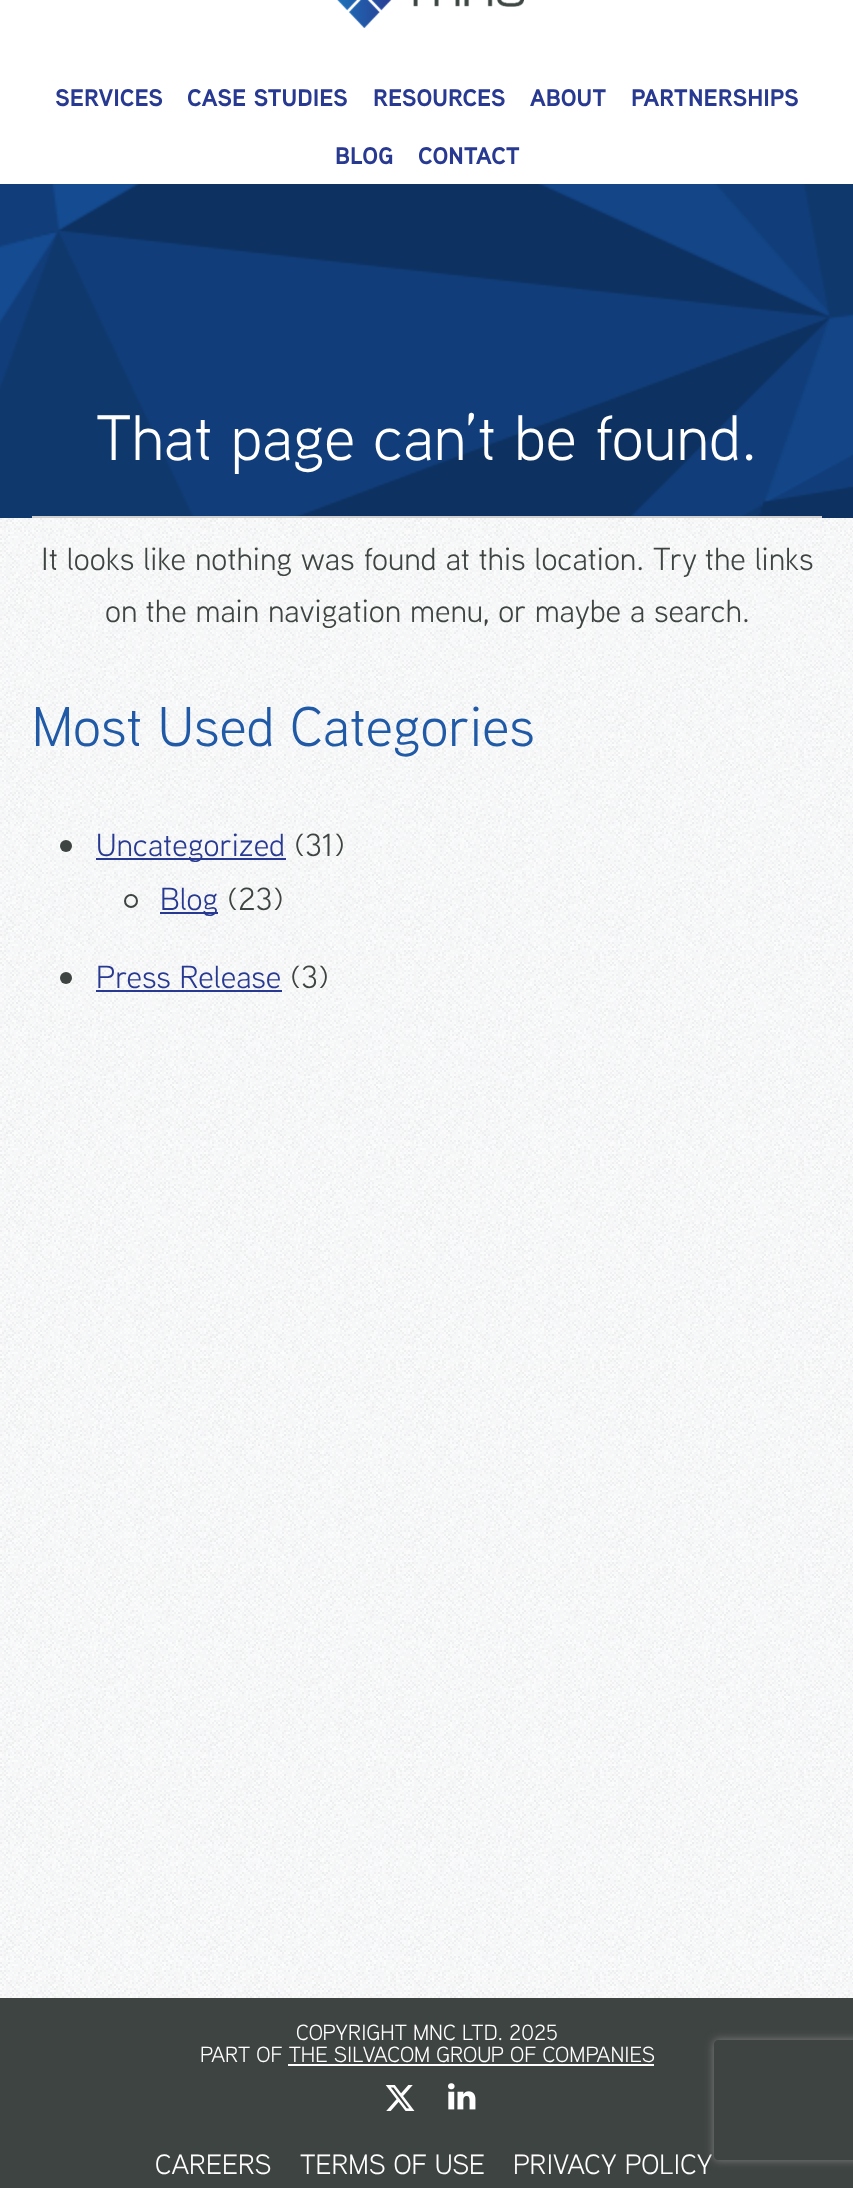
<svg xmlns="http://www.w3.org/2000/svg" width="853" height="2188">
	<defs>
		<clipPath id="clip1"><path d="M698 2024H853V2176H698ZM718 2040H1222C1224 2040 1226 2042 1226 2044V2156C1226 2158 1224 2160 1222 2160H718C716 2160 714 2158 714 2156V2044C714 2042 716 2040 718 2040Z" clip-rule="evenodd" /></clipPath>
	</defs>
	<rect width="100%" height="100%" fill="#FFFFFF" />
	<image x="0" y="518" width="853" height="1480" href="assets/img1.png" />
	<image x="337" y="0" width="187" height="28" href="assets/img2.png" />
	<g font-family="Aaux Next" font-size="24" font-weight="700" fill="#283991">
		<text x="55" y="106">SERVICES</text>
		<text x="187" y="106">CASE STUDIES</text>
		<text x="373" y="106">RESOURCES</text>
		<text x="530" y="106">ABOUT</text>
		<text x="631" y="106">PARTNERSHIPS</text>
		<text x="335" y="164">BLOG</text>
		<text x="418" y="164">CONTACT</text>
	</g>
	<image x="0" y="184" width="853" height="334" href="assets/img3.png" />
	<rect x="32" y="516" width="790" height="2" fill="#D0D0D0" />
	<text x="96" y="460" font-family="Aaux Next" font-size="64" fill="#FFFFFF">That page can’t be found.</text>
	<g font-family="Aaux Next" font-size="32" fill="#3E4442">
		<text x="41" y="570">It looks like nothing was found at this location. Try the links</text>
		<text x="105" y="622">on the main navigation menu, or maybe a search.</text>
	</g>
	<text x="32" y="746" font-family="Aaux Next" font-size="56" fill="#2059A6">Most Used Categories</text>
	<circle cx="66" cy="846" r="6" fill="#3E4442" />
	<rect x="96" y="858" width="190" height="2" fill="#283991" />
	<text x="96" y="856" font-family="Aaux Next" font-size="32" fill="#283991">Uncategorized</text>
	<text x="294" y="856" font-family="Aaux Next" font-size="32" fill="#3E4442">(31)</text>
	<circle cx="131" cy="901" r="6" fill="none" stroke="#3E4442" stroke-width="2" />
	<rect x="160" y="912" width="58" height="2" fill="#283991" />
	<text x="160" y="910" font-family="Aaux Next" font-size="32" fill="#283991">Blog</text>
	<text x="227" y="910" font-family="Aaux Next" font-size="32" fill="#3E4442">(23)</text>
	<circle cx="66" cy="978" r="6" fill="#3E4442" />
	<text x="96" y="988" font-family="Aaux Next" font-size="32" fill="#283991">Press Release</text>
	<rect x="96" y="990" width="186" height="2" fill="#283991" />
	<text x="290" y="988" font-family="Aaux Next" font-size="32" fill="#3E4442">(3)</text>
	<rect x="0" y="1998" width="853" height="190" fill="#3E4442" />
	<g font-family="Aaux Next" font-size="22" fill="#FFFFFF">
		<text x="296" y="2040">COPYRIGHT MNC LTD. 2025</text>
		<text x="200" y="2062">PART OF THE SILVACOM GROUP OF COMPANIES</text>
	</g>
	<rect x="288" y="2064" width="366" height="2" fill="#FFFFFF" />
	<image x="385" y="2085" width="30" height="26" href="assets/img4.png" />
	<image x="448" y="2083" width="28" height="27" href="assets/img5.png" />
	<g font-family="Aaux Next" font-size="28" fill="#FFFFFF">
		<text x="155" y="2174">CAREERS</text>
		<text x="300" y="2174">TERMS OF USE</text>
		<text x="513" y="2174">PRIVACY POLICY</text>
	</g>
	<g clip-path="url(#clip1)">
		<rect x="714" y="2040" width="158" height="120" rx="4" fill="#808080" filter="blur(5px)" />
	</g>
</svg>
